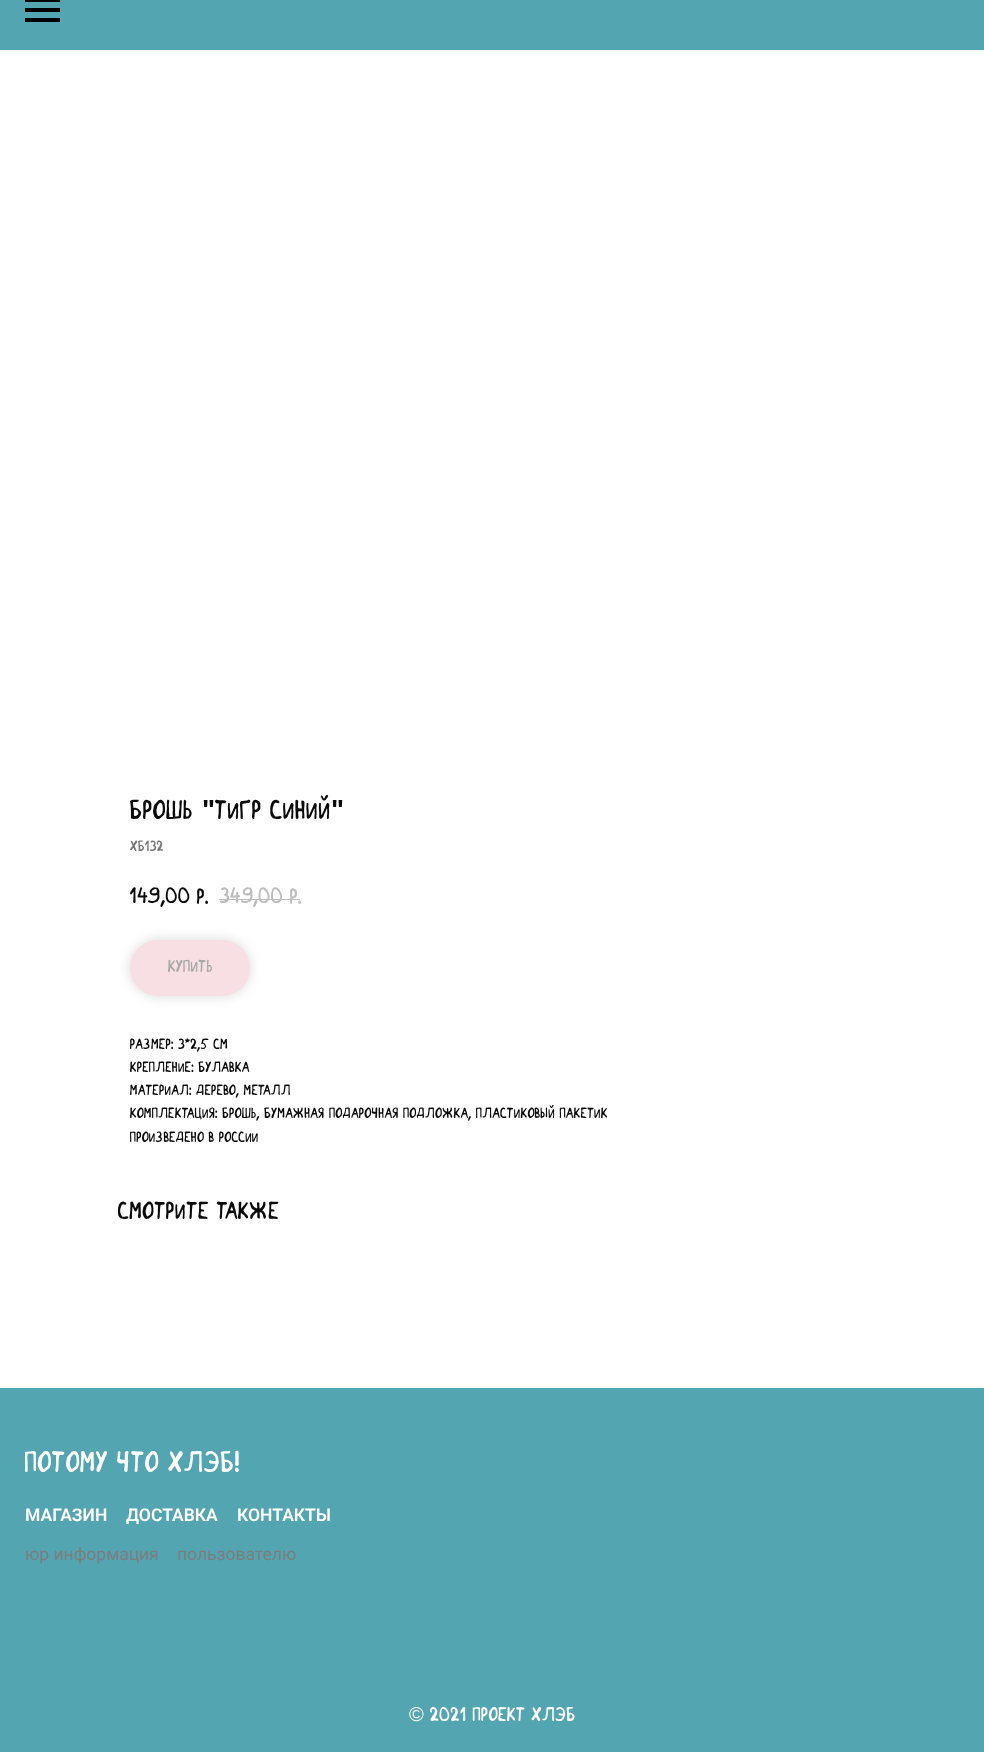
<svg xmlns="http://www.w3.org/2000/svg" width="984" height="1752">
	<rect width="100%" height="100%" fill="#FFFFFF" />
	<rect x="0" y="0" width="984" height="50" fill="#52A5B1" />
	<rect x="25" y="0" width="35" height="2" fill="#000000" />
	<rect x="25" y="8" width="35" height="4" fill="#000000" />
	<rect x="25" y="18" width="35" height="4" fill="#000000" />
	<text x="130" y="819" font-family="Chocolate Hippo" font-size="27.5" fill="#0A0A0A">Брошь</text>
	<text x="202" y="819" font-family="Liberation Sans" font-size="27.5" font-weight="700" fill="#0A0A0A">"</text>
	<text x="215" y="819" font-family="Chocolate Hippo" font-size="27.5" fill="#0A0A0A">Тигр синий</text>
	<text x="331" y="819" font-family="Liberation Sans" font-size="27.5" font-weight="700" fill="#0A0A0A">"</text>
	<text x="130" y="851" font-family="Chocolate Hippo" font-size="15" fill="#777777">ХБ132</text>
	<g font-family="Chocolate Hippo" font-size="22.5" fill="#0A0A0A">
		<text x="130" y="903">149,00</text>
		<text x="197" y="904">р.</text>
	</g>
	<g font-family="Chocolate Hippo" font-size="22.5" fill="#BDBDBD">
		<text x="220" y="903">349,00</text>
		<text x="290" y="904">р.</text>
	</g>
	<rect x="219" y="899" width="81" height="1" fill="#BDBDBD" />
	<rect x="130" y="940" width="120" height="56" rx="28" fill="#808080" fill-opacity="0.3" filter="blur(6px)" />
	<rect x="130" y="940" width="120" height="56" rx="28" fill="#F8DFE4" />
	<text x="168" y="972" font-family="Chocolate Hippo" font-size="17.5" fill="#A9A9A9">Купить</text>
	<g font-family="Chocolate Hippo" font-size="15" fill="#0A0A0A">
		<text x="130" y="1049">Размер: 3*2,5 см</text>
		<text x="130" y="1072">Крепление: булавка</text>
		<text x="130" y="1095">Материал: дерево, металл</text>
		<text x="130" y="1118">Комплектация: брошь, бумажная подарочная подложка, пластиковый пакетик</text>
		<text x="130" y="1142">Произведено в России</text>
	</g>
	<text x="118" y="1219" font-family="Chocolate Hippo" font-size="25" fill="#0A0A0A">Смотрите также</text>
	<rect x="0" y="1388" width="984" height="364" fill="#52A5B1" />
	<text x="25" y="1472" font-family="Chocolate Hippo" font-size="30" fill="#FFFFFF">ПОТОМУ ЧТО ХЛЭБ!</text>
	<g font-family="Roboto" font-size="17.5" font-weight="600" fill="#FFFFFF">
		<text x="25" y="1521">МАГАЗИН</text>
		<text x="126" y="1521">ДОСТАВКА</text>
		<text x="237" y="1521">КОНТАКТЫ</text>
	</g>
	<g font-family="Roboto" font-size="17.5" fill="#7D7D7D">
		<text x="25" y="1560">юр информация</text>
		<text x="177" y="1560">пользователю</text>
	</g>
	<text x="409" y="1721" font-family="Liberation Sans" font-size="20" fill="#FFFFFF">©</text>
	<text x="430" y="1721" font-family="Chocolate Hippo" font-size="20" fill="#FFFFFF">2021 ПРОЕКТ ХЛЭБ</text>
</svg>
